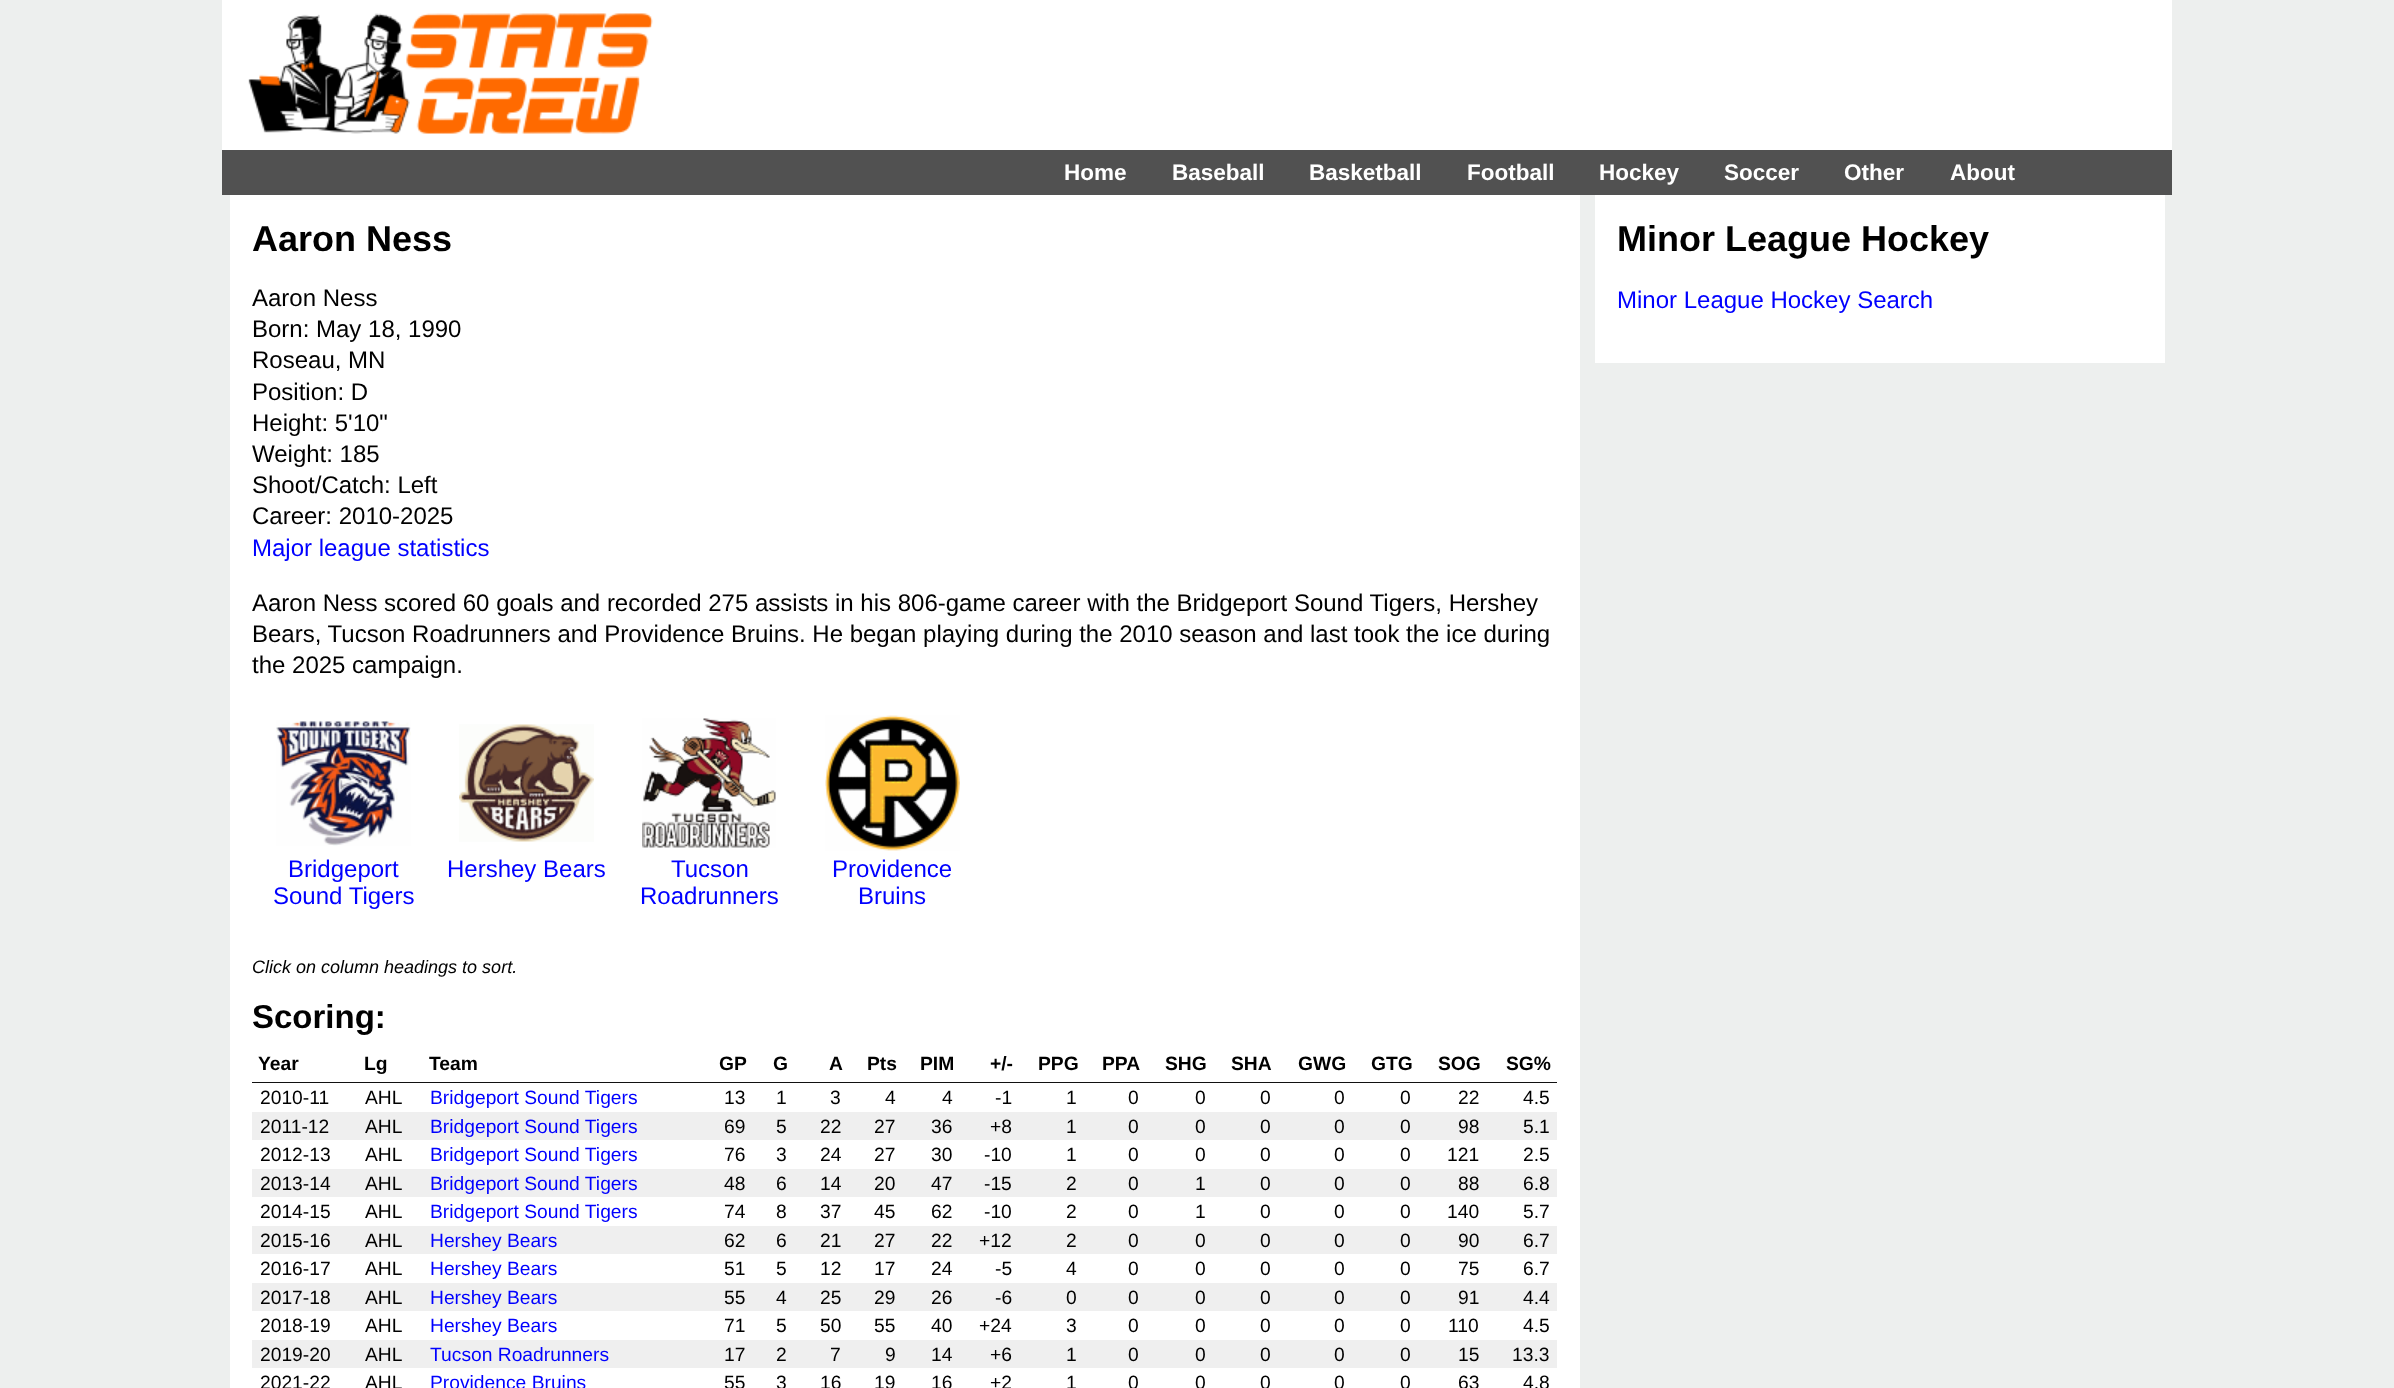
<svg xmlns="http://www.w3.org/2000/svg" width="2394" height="1388">
	<rect width="100%" height="100%" fill="#EDEFEE" />
	<rect x="222" y="0" width="1950" height="150" fill="#FFFFFF" />
	<image x="248" y="13" width="405" height="121" href="assets/img1.png" />
	<rect x="222" y="150" width="1950" height="45" fill="#515151" />
	<g font-family="Liberation Sans" font-size="22.5" font-weight="700" fill="#FFFFFF">
		<text x="1064" y="180">Home</text>
		<text x="1172" y="180">Baseball</text>
		<text x="1309" y="180">Basketball</text>
		<text x="1467" y="180">Football</text>
		<text x="1599" y="180">Hockey</text>
		<text x="1724" y="180">Soccer</text>
		<text x="1844" y="180">Other</text>
		<text x="1950" y="180">About</text>
	</g>
	<rect x="230" y="195" width="1350" height="1193" fill="#FFFFFF" />
	<text x="252" y="251" font-family="Liberation Sans" font-size="36" font-weight="700" fill="#000000">Aaron Ness</text>
	<g font-family="Liberation Sans" font-size="24" fill="#000000">
		<text x="252" y="306">Aaron Ness</text>
		<text x="252" y="337">Born: May 18, 1990</text>
		<text x="252" y="368">Roseau, MN</text>
		<text x="252" y="400">Position: D</text>
		<text x="252" y="431">Height: 5'10"</text>
		<text x="252" y="462">Weight: 185</text>
		<text x="252" y="493">Shoot/Catch: Left</text>
		<text x="252" y="524">Career: 2010-2025</text>
	</g>
	<text x="252" y="556" font-family="Liberation Sans" font-size="24" fill="#0000FF">Major league statistics</text>
	<g font-family="Liberation Sans" font-size="24" fill="#000000">
		<text x="252" y="611">Aaron Ness scored 60 goals and recorded 275 assists in his 806-game career with the Bridgeport Sound Tigers, Hershey</text>
		<text x="252" y="642">Bears, Tucson Roadrunners and Providence Bruins. He began playing during the 2010 season and last took the ice during</text>
		<text x="252" y="673">the 2025 campaign.</text>
	</g>
	<image x="276" y="720" width="135" height="126" href="assets/img2.png" />
	<g font-family="Liberation Sans" font-size="24" fill="#0000FF">
		<text x="288" y="877">Bridgeport</text>
		<text x="273" y="904">Sound Tigers</text>
	</g>
	<image x="459" y="724" width="135" height="118" href="assets/img3.png" />
	<text x="447" y="877" font-family="Liberation Sans" font-size="24" fill="#0000FF">Hershey Bears</text>
	<image x="642" y="718" width="134" height="130" href="assets/img4.png" />
	<g font-family="Liberation Sans" font-size="24" fill="#0000FF">
		<text x="671" y="877">Tucson</text>
		<text x="640" y="904">Roadrunners</text>
	</g>
	<image x="825" y="715" width="135" height="136" href="assets/img5.png" />
	<g font-family="Liberation Sans" font-size="24" fill="#0000FF">
		<text x="832" y="877">Providence</text>
		<text x="858" y="904">Bruins</text>
	</g>
	<text x="252" y="973" font-family="Liberation Sans" font-size="18" font-style="italic" fill="#000000">Click on column headings to sort.</text>
	<text x="252" y="1028" font-family="Liberation Sans" font-size="33" font-weight="700" fill="#000000">Scoring:</text>
	<rect x="252" y="1082" width="1305" height="1" fill="#111111" />
	<g font-family="Liberation Sans" font-size="19.25" font-weight="700" fill="#000000">
		<text x="258" y="1070">Year</text>
		<text x="364" y="1070">Lg</text>
		<text x="429" y="1070">Team</text>
		<text x="719" y="1070">GP</text>
		<text x="773" y="1070">G</text>
		<text x="829" y="1070">A</text>
		<text x="867" y="1070">Pts</text>
		<text x="920" y="1070">PIM</text>
		<text x="990" y="1070">+/-</text>
		<text x="1038" y="1070">PPG</text>
		<text x="1102" y="1070">PPA</text>
		<text x="1165" y="1070">SHG</text>
		<text x="1231" y="1070">SHA</text>
		<text x="1298" y="1070">GWG</text>
		<text x="1371" y="1070">GTG</text>
		<text x="1438" y="1070">SOG</text>
		<text x="1506" y="1070">SG%</text>
	</g>
	<g font-family="Liberation Sans" font-size="19.25" fill="#000000">
		<text x="260" y="1104">2010-11</text>
		<text x="365" y="1104">AHL</text>
	</g>
	<text x="430" y="1104" font-family="Liberation Sans" font-size="19.25" fill="#0000FF">Bridgeport Sound Tigers</text>
	<g font-family="Liberation Sans" font-size="19.25" fill="#000000">
		<text x="724" y="1104">13</text>
		<text x="776" y="1104">1</text>
		<text x="830" y="1104">3</text>
		<text x="885" y="1104">4</text>
		<text x="942" y="1104">4</text>
		<text x="995" y="1104">-1</text>
		<text x="1066" y="1104">1</text>
		<text x="1128" y="1104">0</text>
		<text x="1195" y="1104">0</text>
		<text x="1260" y="1104">0</text>
		<text x="1334" y="1104">0</text>
		<text x="1400" y="1104">0</text>
		<text x="1458" y="1104">22</text>
		<text x="1523" y="1104">4.5</text>
	</g>
	<rect x="252" y="1112" width="1305" height="28" fill="#EFEFEF" />
	<g font-family="Liberation Sans" font-size="19.25" fill="#000000">
		<text x="260" y="1133">2011-12</text>
		<text x="365" y="1133">AHL</text>
	</g>
	<text x="430" y="1133" font-family="Liberation Sans" font-size="19.25" fill="#0000FF">Bridgeport Sound Tigers</text>
	<g font-family="Liberation Sans" font-size="19.25" fill="#000000">
		<text x="724" y="1133">69</text>
		<text x="776" y="1133">5</text>
		<text x="820" y="1133">22</text>
		<text x="874" y="1133">27</text>
		<text x="931" y="1133">36</text>
		<text x="990" y="1133">+8</text>
		<text x="1066" y="1133">1</text>
		<text x="1128" y="1133">0</text>
		<text x="1195" y="1133">0</text>
		<text x="1260" y="1133">0</text>
		<text x="1334" y="1133">0</text>
		<text x="1400" y="1133">0</text>
		<text x="1458" y="1133">98</text>
		<text x="1523" y="1133">5.1</text>
		<text x="260" y="1161">2012-13</text>
		<text x="365" y="1161">AHL</text>
	</g>
	<text x="430" y="1161" font-family="Liberation Sans" font-size="19.25" fill="#0000FF">Bridgeport Sound Tigers</text>
	<g font-family="Liberation Sans" font-size="19.25" fill="#000000">
		<text x="724" y="1161">76</text>
		<text x="776" y="1161">3</text>
		<text x="820" y="1161">24</text>
		<text x="874" y="1161">27</text>
		<text x="931" y="1161">30</text>
		<text x="984" y="1161">-10</text>
		<text x="1066" y="1161">1</text>
		<text x="1128" y="1161">0</text>
		<text x="1195" y="1161">0</text>
		<text x="1260" y="1161">0</text>
		<text x="1334" y="1161">0</text>
		<text x="1400" y="1161">0</text>
		<text x="1447" y="1161">121</text>
		<text x="1523" y="1161">2.5</text>
	</g>
	<rect x="252" y="1169" width="1305" height="28" fill="#EFEFEF" />
	<g font-family="Liberation Sans" font-size="19.25" fill="#000000">
		<text x="260" y="1190">2013-14</text>
		<text x="365" y="1190">AHL</text>
	</g>
	<text x="430" y="1190" font-family="Liberation Sans" font-size="19.25" fill="#0000FF">Bridgeport Sound Tigers</text>
	<g font-family="Liberation Sans" font-size="19.25" fill="#000000">
		<text x="724" y="1190">48</text>
		<text x="776" y="1190">6</text>
		<text x="820" y="1190">14</text>
		<text x="874" y="1190">20</text>
		<text x="931" y="1190">47</text>
		<text x="984" y="1190">-15</text>
		<text x="1066" y="1190">2</text>
		<text x="1128" y="1190">0</text>
		<text x="1195" y="1190">1</text>
		<text x="1260" y="1190">0</text>
		<text x="1334" y="1190">0</text>
		<text x="1400" y="1190">0</text>
		<text x="1458" y="1190">88</text>
		<text x="1523" y="1190">6.8</text>
		<text x="260" y="1218">2014-15</text>
		<text x="365" y="1218">AHL</text>
	</g>
	<text x="430" y="1218" font-family="Liberation Sans" font-size="19.25" fill="#0000FF">Bridgeport Sound Tigers</text>
	<g font-family="Liberation Sans" font-size="19.25" fill="#000000">
		<text x="724" y="1218">74</text>
		<text x="776" y="1218">8</text>
		<text x="820" y="1218">37</text>
		<text x="874" y="1218">45</text>
		<text x="931" y="1218">62</text>
		<text x="984" y="1218">-10</text>
		<text x="1066" y="1218">2</text>
		<text x="1128" y="1218">0</text>
		<text x="1195" y="1218">1</text>
		<text x="1260" y="1218">0</text>
		<text x="1334" y="1218">0</text>
		<text x="1400" y="1218">0</text>
		<text x="1447" y="1218">140</text>
		<text x="1523" y="1218">5.7</text>
	</g>
	<rect x="252" y="1226" width="1305" height="28" fill="#EFEFEF" />
	<g font-family="Liberation Sans" font-size="19.25" fill="#000000">
		<text x="260" y="1247">2015-16</text>
		<text x="365" y="1247">AHL</text>
	</g>
	<text x="430" y="1247" font-family="Liberation Sans" font-size="19.25" fill="#0000FF">Hershey Bears</text>
	<g font-family="Liberation Sans" font-size="19.25" fill="#000000">
		<text x="724" y="1247">62</text>
		<text x="776" y="1247">6</text>
		<text x="820" y="1247">21</text>
		<text x="874" y="1247">27</text>
		<text x="931" y="1247">22</text>
		<text x="979" y="1247">+12</text>
		<text x="1066" y="1247">2</text>
		<text x="1128" y="1247">0</text>
		<text x="1195" y="1247">0</text>
		<text x="1260" y="1247">0</text>
		<text x="1334" y="1247">0</text>
		<text x="1400" y="1247">0</text>
		<text x="1458" y="1247">90</text>
		<text x="1523" y="1247">6.7</text>
		<text x="260" y="1275">2016-17</text>
		<text x="365" y="1275">AHL</text>
	</g>
	<text x="430" y="1275" font-family="Liberation Sans" font-size="19.25" fill="#0000FF">Hershey Bears</text>
	<g font-family="Liberation Sans" font-size="19.25" fill="#000000">
		<text x="724" y="1275">51</text>
		<text x="776" y="1275">5</text>
		<text x="820" y="1275">12</text>
		<text x="874" y="1275">17</text>
		<text x="931" y="1275">24</text>
		<text x="995" y="1275">-5</text>
		<text x="1066" y="1275">4</text>
		<text x="1128" y="1275">0</text>
		<text x="1195" y="1275">0</text>
		<text x="1260" y="1275">0</text>
		<text x="1334" y="1275">0</text>
		<text x="1400" y="1275">0</text>
		<text x="1458" y="1275">75</text>
		<text x="1523" y="1275">6.7</text>
	</g>
	<rect x="252" y="1283" width="1305" height="28" fill="#EFEFEF" />
	<g font-family="Liberation Sans" font-size="19.25" fill="#000000">
		<text x="260" y="1304">2017-18</text>
		<text x="365" y="1304">AHL</text>
	</g>
	<text x="430" y="1304" font-family="Liberation Sans" font-size="19.25" fill="#0000FF">Hershey Bears</text>
	<g font-family="Liberation Sans" font-size="19.25" fill="#000000">
		<text x="724" y="1304">55</text>
		<text x="776" y="1304">4</text>
		<text x="820" y="1304">25</text>
		<text x="874" y="1304">29</text>
		<text x="931" y="1304">26</text>
		<text x="995" y="1304">-6</text>
		<text x="1066" y="1304">0</text>
		<text x="1128" y="1304">0</text>
		<text x="1195" y="1304">0</text>
		<text x="1260" y="1304">0</text>
		<text x="1334" y="1304">0</text>
		<text x="1400" y="1304">0</text>
		<text x="1458" y="1304">91</text>
		<text x="1523" y="1304">4.4</text>
		<text x="260" y="1332">2018-19</text>
		<text x="365" y="1332">AHL</text>
	</g>
	<text x="430" y="1332" font-family="Liberation Sans" font-size="19.25" fill="#0000FF">Hershey Bears</text>
	<g font-family="Liberation Sans" font-size="19.25" fill="#000000">
		<text x="724" y="1332">71</text>
		<text x="776" y="1332">5</text>
		<text x="820" y="1332">50</text>
		<text x="874" y="1332">55</text>
		<text x="931" y="1332">40</text>
		<text x="979" y="1332">+24</text>
		<text x="1066" y="1332">3</text>
		<text x="1128" y="1332">0</text>
		<text x="1195" y="1332">0</text>
		<text x="1260" y="1332">0</text>
		<text x="1334" y="1332">0</text>
		<text x="1400" y="1332">0</text>
		<text x="1448" y="1332">110</text>
		<text x="1523" y="1332">4.5</text>
	</g>
	<rect x="252" y="1340" width="1305" height="28" fill="#EFEFEF" />
	<g font-family="Liberation Sans" font-size="19.25" fill="#000000">
		<text x="260" y="1361">2019-20</text>
		<text x="365" y="1361">AHL</text>
	</g>
	<text x="430" y="1361" font-family="Liberation Sans" font-size="19.25" fill="#0000FF">Tucson Roadrunners</text>
	<g font-family="Liberation Sans" font-size="19.25" fill="#000000">
		<text x="724" y="1361">17</text>
		<text x="776" y="1361">2</text>
		<text x="830" y="1361">7</text>
		<text x="885" y="1361">9</text>
		<text x="931" y="1361">14</text>
		<text x="990" y="1361">+6</text>
		<text x="1066" y="1361">1</text>
		<text x="1128" y="1361">0</text>
		<text x="1195" y="1361">0</text>
		<text x="1260" y="1361">0</text>
		<text x="1334" y="1361">0</text>
		<text x="1400" y="1361">0</text>
		<text x="1458" y="1361">15</text>
		<text x="1512" y="1361">13.3</text>
		<text x="260" y="1389">2021-22</text>
		<text x="365" y="1389">AHL</text>
	</g>
	<text x="430" y="1389" font-family="Liberation Sans" font-size="19.25" fill="#0000FF">Providence Bruins</text>
	<g font-family="Liberation Sans" font-size="19.25" fill="#000000">
		<text x="724" y="1389">55</text>
		<text x="776" y="1389">3</text>
		<text x="820" y="1389">16</text>
		<text x="874" y="1389">19</text>
		<text x="931" y="1389">16</text>
		<text x="990" y="1389">+2</text>
		<text x="1066" y="1389">1</text>
		<text x="1128" y="1389">0</text>
		<text x="1195" y="1389">0</text>
		<text x="1260" y="1389">0</text>
		<text x="1334" y="1389">0</text>
		<text x="1400" y="1389">0</text>
		<text x="1458" y="1389">63</text>
		<text x="1523" y="1389">4.8</text>
	</g>
	<rect x="1595" y="195" width="570" height="168" fill="#FFFFFF" />
	<text x="1617" y="251" font-family="Liberation Sans" font-size="36" font-weight="700" fill="#000000">Minor League Hockey</text>
	<text x="1617" y="308" font-family="Liberation Sans" font-size="24" fill="#0000FF">Minor League Hockey Search</text>
</svg>
